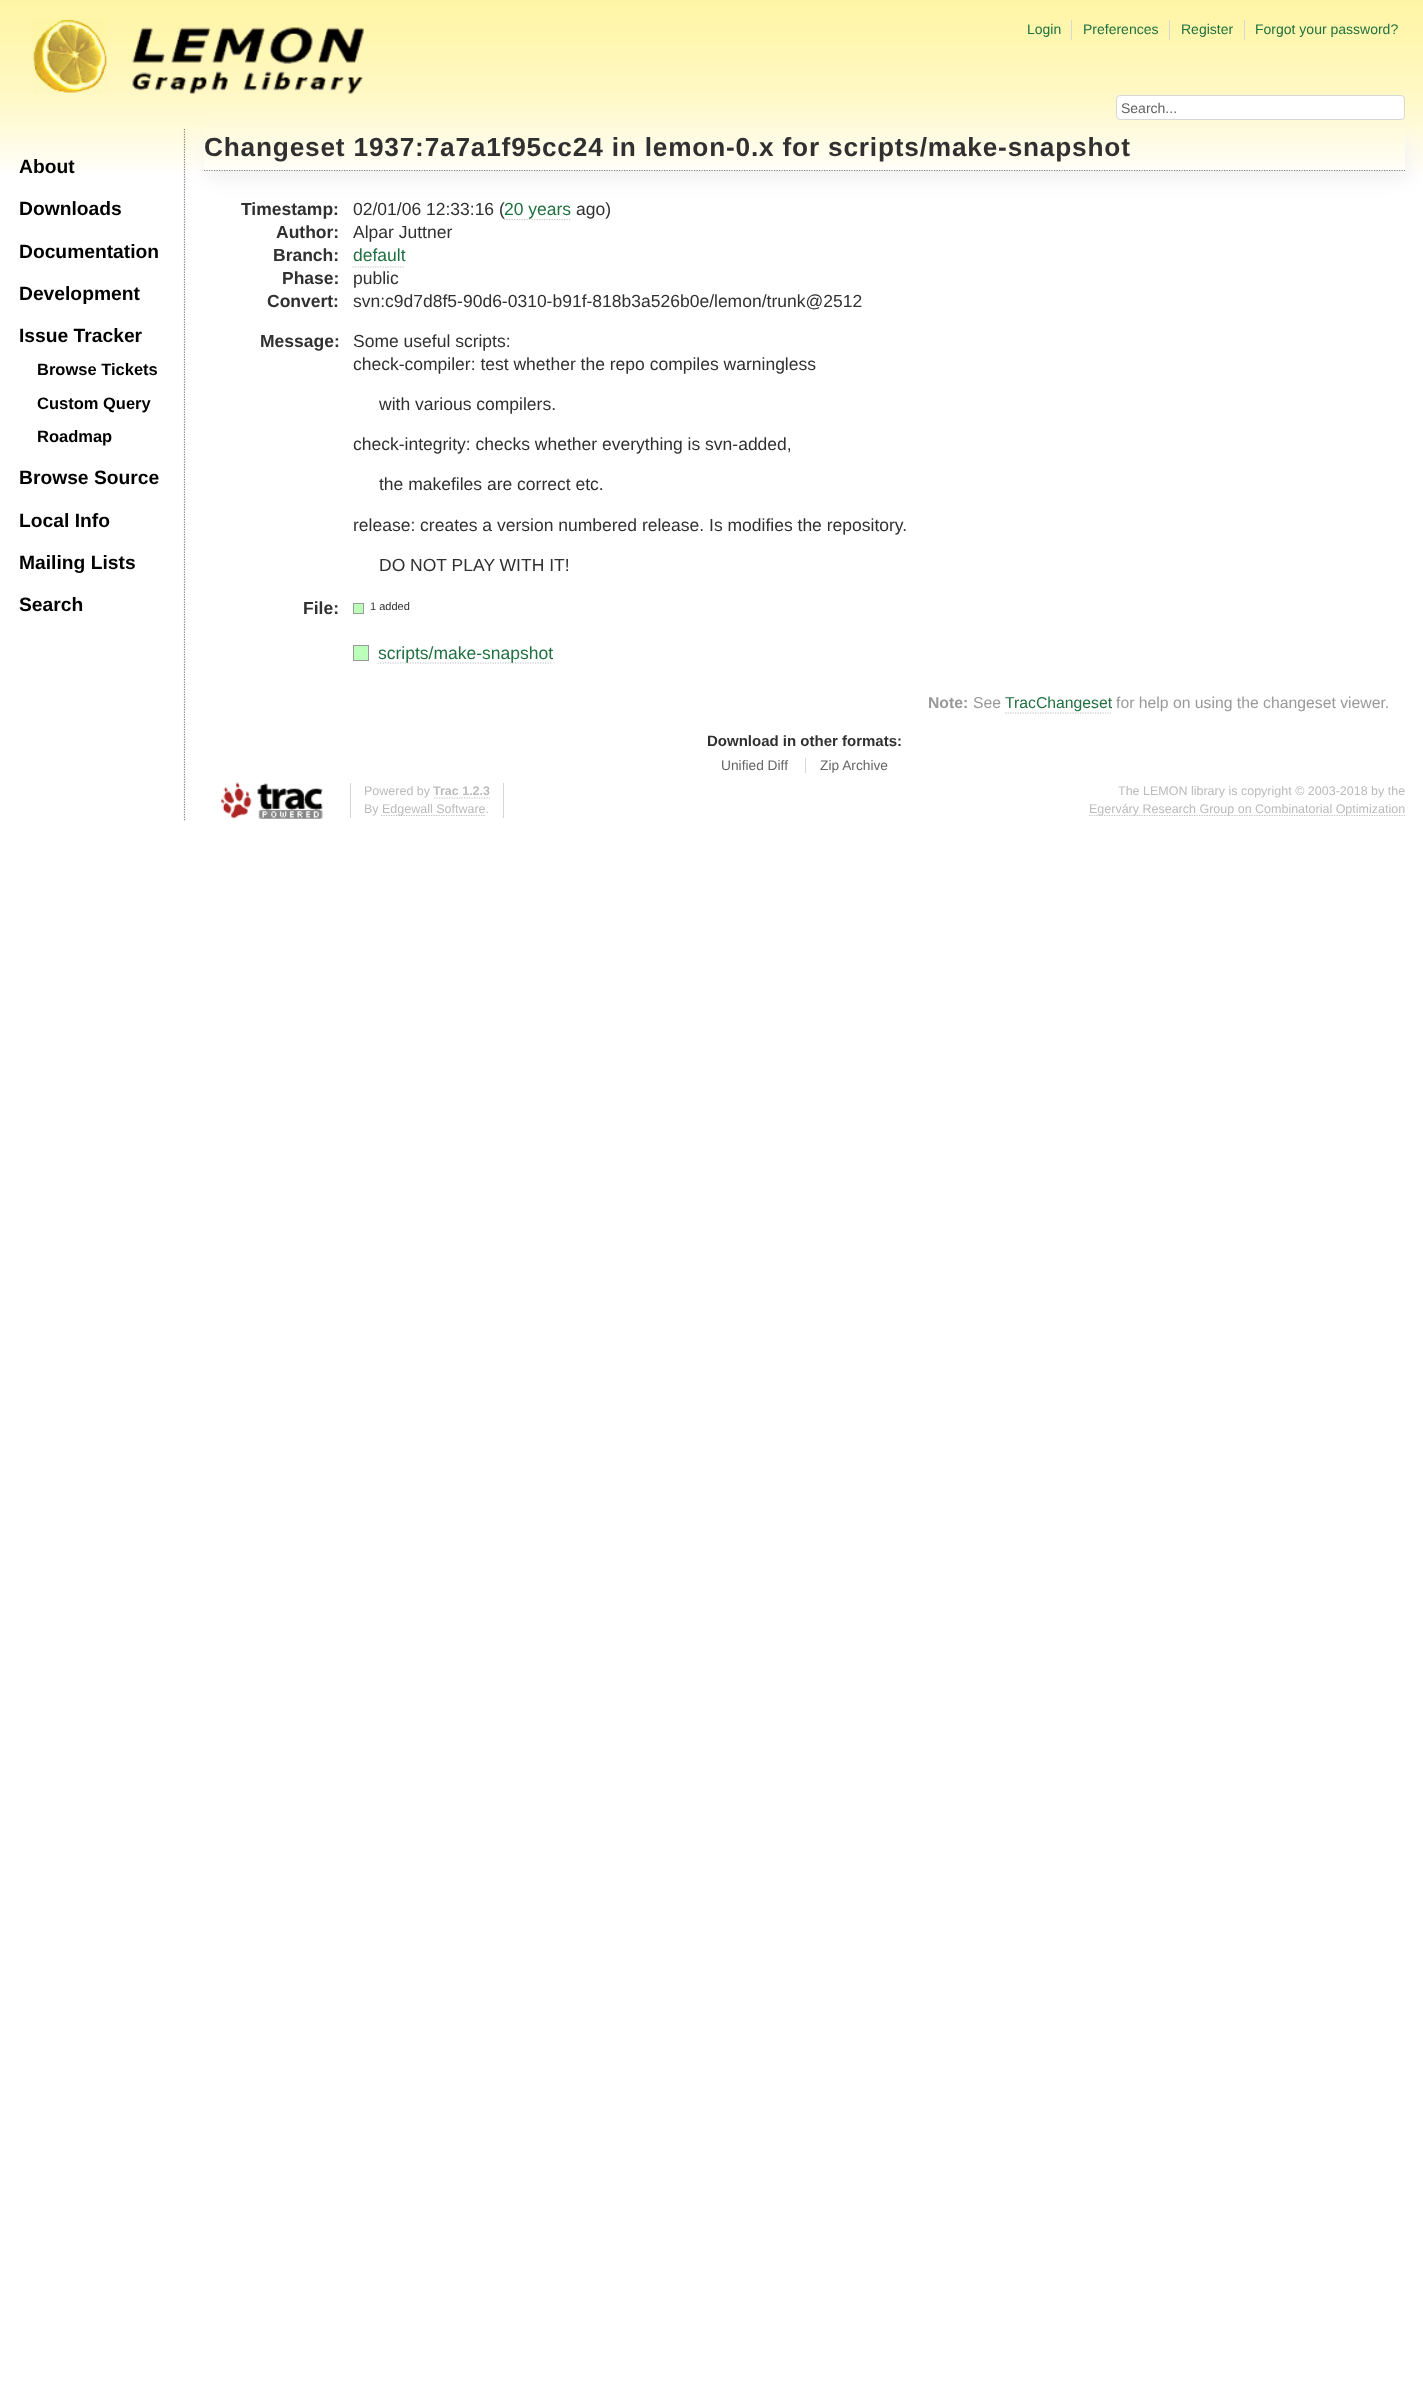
<svg xmlns="http://www.w3.org/2000/svg" width="1423" height="2392">
	<defs>
		<clipPath id="clip1"><path d="M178 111H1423V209H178ZM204 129H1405V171H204Z" clip-rule="evenodd" /></clipPath>
	</defs>
	<rect width="100%" height="100%" fill="#FFFFFF" />
	<image x="0" y="0" width="1423" height="172" href="assets/img1.png" />
	<image x="32" y="19" width="76" height="75" href="assets/img2.png" />
	<path d="M184.5 129V821" fill="none" stroke="#808080" stroke-width="1.2" stroke-dasharray="1.25 1.25" />
	<rect x="1071" y="20" width="1" height="20" fill="#D7D7D7" />
	<text x="1027" y="34" font-family="Liberation Sans" font-size="14" fill="#207040">Login</text>
	<rect x="1169" y="20" width="1" height="20" fill="#D7D7D7" />
	<text x="1083" y="34" font-family="Liberation Sans" font-size="14" fill="#207040">Preferences</text>
	<rect x="1244" y="20" width="1" height="20" fill="#D7D7D7" />
	<g font-family="Liberation Sans" font-size="14" fill="#207040">
		<text x="1181" y="34">Register</text>
		<text x="1255" y="34">Forgot your password?</text>
	</g>
	<rect x="1116.5" y="95.5" width="288" height="24" rx="3.5" fill="#FFFFFF" stroke="#D7D7D7" />
	<g clip-path="url(#clip1)">
		<rect x="206" y="139" width="1202" height="42" fill="#F2F2F2" filter="blur(9px)" />
	</g>
	<path d="M204 170.5H1405" fill="none" stroke="#808080" stroke-width="1.2" stroke-dasharray="1.25 1.25" />
	<text x="204" y="156" font-family="Liberation Sans" font-size="26.25" font-weight="700" letter-spacing="0.8" fill="#303030">Changeset 1937:7a7a1f95cc24 in lemon-0.x for scripts/make-snapshot</text>
	<text x="241" y="215" font-family="Liberation Sans" font-size="17.5" font-weight="700" fill="#303030">Timestamp:</text>
	<text x="353" y="215" font-family="Liberation Sans" font-size="17.5" fill="#303030">02/01/06 12:33:16 (</text>
	<path d="M504 219.5H571" fill="none" stroke="#C0C0C0" stroke-width="1.2" stroke-dasharray="1.25 1.25" />
	<text x="504" y="215" font-family="Liberation Sans" font-size="17.5" fill="#207040">20 years</text>
	<text x="576" y="215" font-family="Liberation Sans" font-size="17.5" fill="#303030">ago)</text>
	<text x="276" y="238" font-family="Liberation Sans" font-size="17.5" font-weight="700" fill="#303030">Author:</text>
	<text x="353" y="238" font-family="Liberation Sans" font-size="17.5" fill="#303030">Alpar Juttner</text>
	<text x="273" y="261" font-family="Liberation Sans" font-size="17.5" font-weight="700" fill="#303030">Branch:</text>
	<text x="353" y="261" font-family="Liberation Sans" font-size="17.5" fill="#207040">default</text>
	<path d="M352.5 267H405" fill="none" stroke="#C0C0C0" stroke-width="1.2" stroke-dasharray="1.25 1.25" />
	<text x="282" y="284" font-family="Liberation Sans" font-size="17.5" font-weight="700" fill="#303030">Phase:</text>
	<text x="353" y="284" font-family="Liberation Sans" font-size="17.5" fill="#303030">public</text>
	<text x="267" y="307" font-family="Liberation Sans" font-size="17.5" font-weight="700" fill="#303030">Convert:</text>
	<text x="353" y="307" font-family="Liberation Sans" font-size="17.5" fill="#303030">svn:c9d7d8f5-90d6-0310-b91f-818b3a526b0e/lemon/trunk@2512</text>
	<text x="260" y="347" font-family="Liberation Sans" font-size="17.5" font-weight="700" fill="#303030">Message:</text>
	<g font-family="Liberation Sans" font-size="17.5" fill="#303030">
		<text x="353" y="347">Some useful scripts:</text>
		<text x="353" y="370">check-compiler: test whether the repo compiles warningless</text>
		<text x="379" y="410">with various compilers.</text>
		<text x="353" y="450">check-integrity: checks whether everything is svn-added,</text>
		<text x="379" y="490">the makefiles are correct etc.</text>
		<text x="353" y="531">release: creates a version numbered release. Is modifies the repository.</text>
		<text x="379" y="571">DO NOT PLAY WITH IT!</text>
	</g>
	<text x="303" y="614" font-family="Liberation Sans" font-size="17.5" font-weight="700" fill="#303030">File:</text>
	<rect x="353.5" y="603.5" width="10" height="10" fill="#BBFFBB" stroke="#999999" />
	<text x="370" y="610" font-family="Liberation Sans" font-size="11" fill="#303030">1 added</text>
	<rect x="353.5" y="645.5" width="15" height="15" fill="#BBFFBB" stroke="#999999" />
	<path d="M377.5 663H552.5" fill="none" stroke="#C0C0C0" stroke-width="1.2" stroke-dasharray="1.25 1.25" />
	<text x="378" y="659" font-family="Liberation Sans" font-size="17.5" fill="#207040">scripts/make-snapshot</text>
	<text x="928" y="708" font-family="Liberation Sans" font-size="15.75" font-weight="700" fill="#999999">Note:</text>
	<text x="973" y="708" font-family="Liberation Sans" font-size="15.75" fill="#999999">See</text>
	<text x="1005" y="708" font-family="Liberation Sans" font-size="15.75" fill="#207040">TracChangeset</text>
	<path d="M1005 713H1111" fill="none" stroke="#C0C0C0" stroke-width="1.2" stroke-dasharray="1.25 1.25" />
	<text x="1116" y="708" font-family="Liberation Sans" font-size="15.75" fill="#999999">for help on using the changeset viewer.</text>
	<text x="707" y="746" font-family="Liberation Sans" font-size="15" font-weight="700" fill="#303030">Download in other formats:</text>
	<text x="721" y="770" font-family="Liberation Sans" font-size="13.75" fill="#666666">Unified Diff</text>
	<rect x="805" y="758" width="1" height="15" fill="#D7D7D7" />
	<text x="820" y="770" font-family="Liberation Sans" font-size="13.75" fill="#666666">Zip Archive</text>
	<image x="221" y="782" width="102" height="37" href="assets/img3.png" />
	<rect x="503" y="783" width="1" height="35" fill="#D7D7D7" />
	<rect x="350" y="783" width="1" height="35" fill="#D7D7D7" />
	<text x="364" y="795" font-family="Liberation Sans" font-size="12.5" fill="#BBBBBB">Powered by</text>
	<text x="433" y="795" font-family="Liberation Sans" font-size="12.5" font-weight="700" fill="#BBBBBB">Trac 1.2.3</text>
	<path d="M434 798H490" fill="none" stroke="#C0C0C0" stroke-width="1.2" stroke-dasharray="1.25 1.25" />
	<text x="364" y="813" font-family="Liberation Sans" font-size="12.5" fill="#BBBBBB">By</text>
	<path d="M381 815.5H485" fill="none" stroke="#C0C0C0" stroke-width="1.2" stroke-dasharray="1.25 1.25" />
	<g font-family="Liberation Sans" font-size="12.5" fill="#BBBBBB">
		<text x="382" y="813">Edgewall Software.</text>
		<text x="1118" y="795">The LEMON library is copyright © 2003-2018 by the</text>
	</g>
	<path d="M1089 815.5H1405" fill="none" stroke="#C0C0C0" stroke-width="1.2" stroke-dasharray="1.25 1.25" />
	<text x="1089" y="813" font-family="Liberation Sans" font-size="12.5" fill="#BBBBBB">Egerváry Research Group on Combinatorial Optimization</text>
	<image x="132" y="27" width="232" height="67" href="assets/img4.png" />
	<text x="1121" y="113" font-family="Liberation Sans" font-size="14" fill="#606060">Search...</text>
	<g font-family="Liberation Sans" font-size="19.25" font-weight="700" fill="#000000">
		<text x="19" y="173">About</text>
		<text x="19" y="215">Downloads</text>
		<text x="19" y="258">Documentation</text>
		<text x="19" y="300">Development</text>
		<text x="19" y="342">Issue Tracker</text>
	</g>
	<g font-family="Liberation Sans" font-size="16.5" font-weight="700" fill="#000000">
		<text x="37" y="375">Browse Tickets</text>
		<text x="37" y="409">Custom Query</text>
		<text x="37" y="442">Roadmap</text>
	</g>
	<g font-family="Liberation Sans" font-size="19.25" font-weight="700" fill="#000000">
		<text x="19" y="484">Browse Source</text>
		<text x="19" y="527">Local Info</text>
		<text x="19" y="569">Mailing Lists</text>
		<text x="19" y="611">Search</text>
	</g>
</svg>
